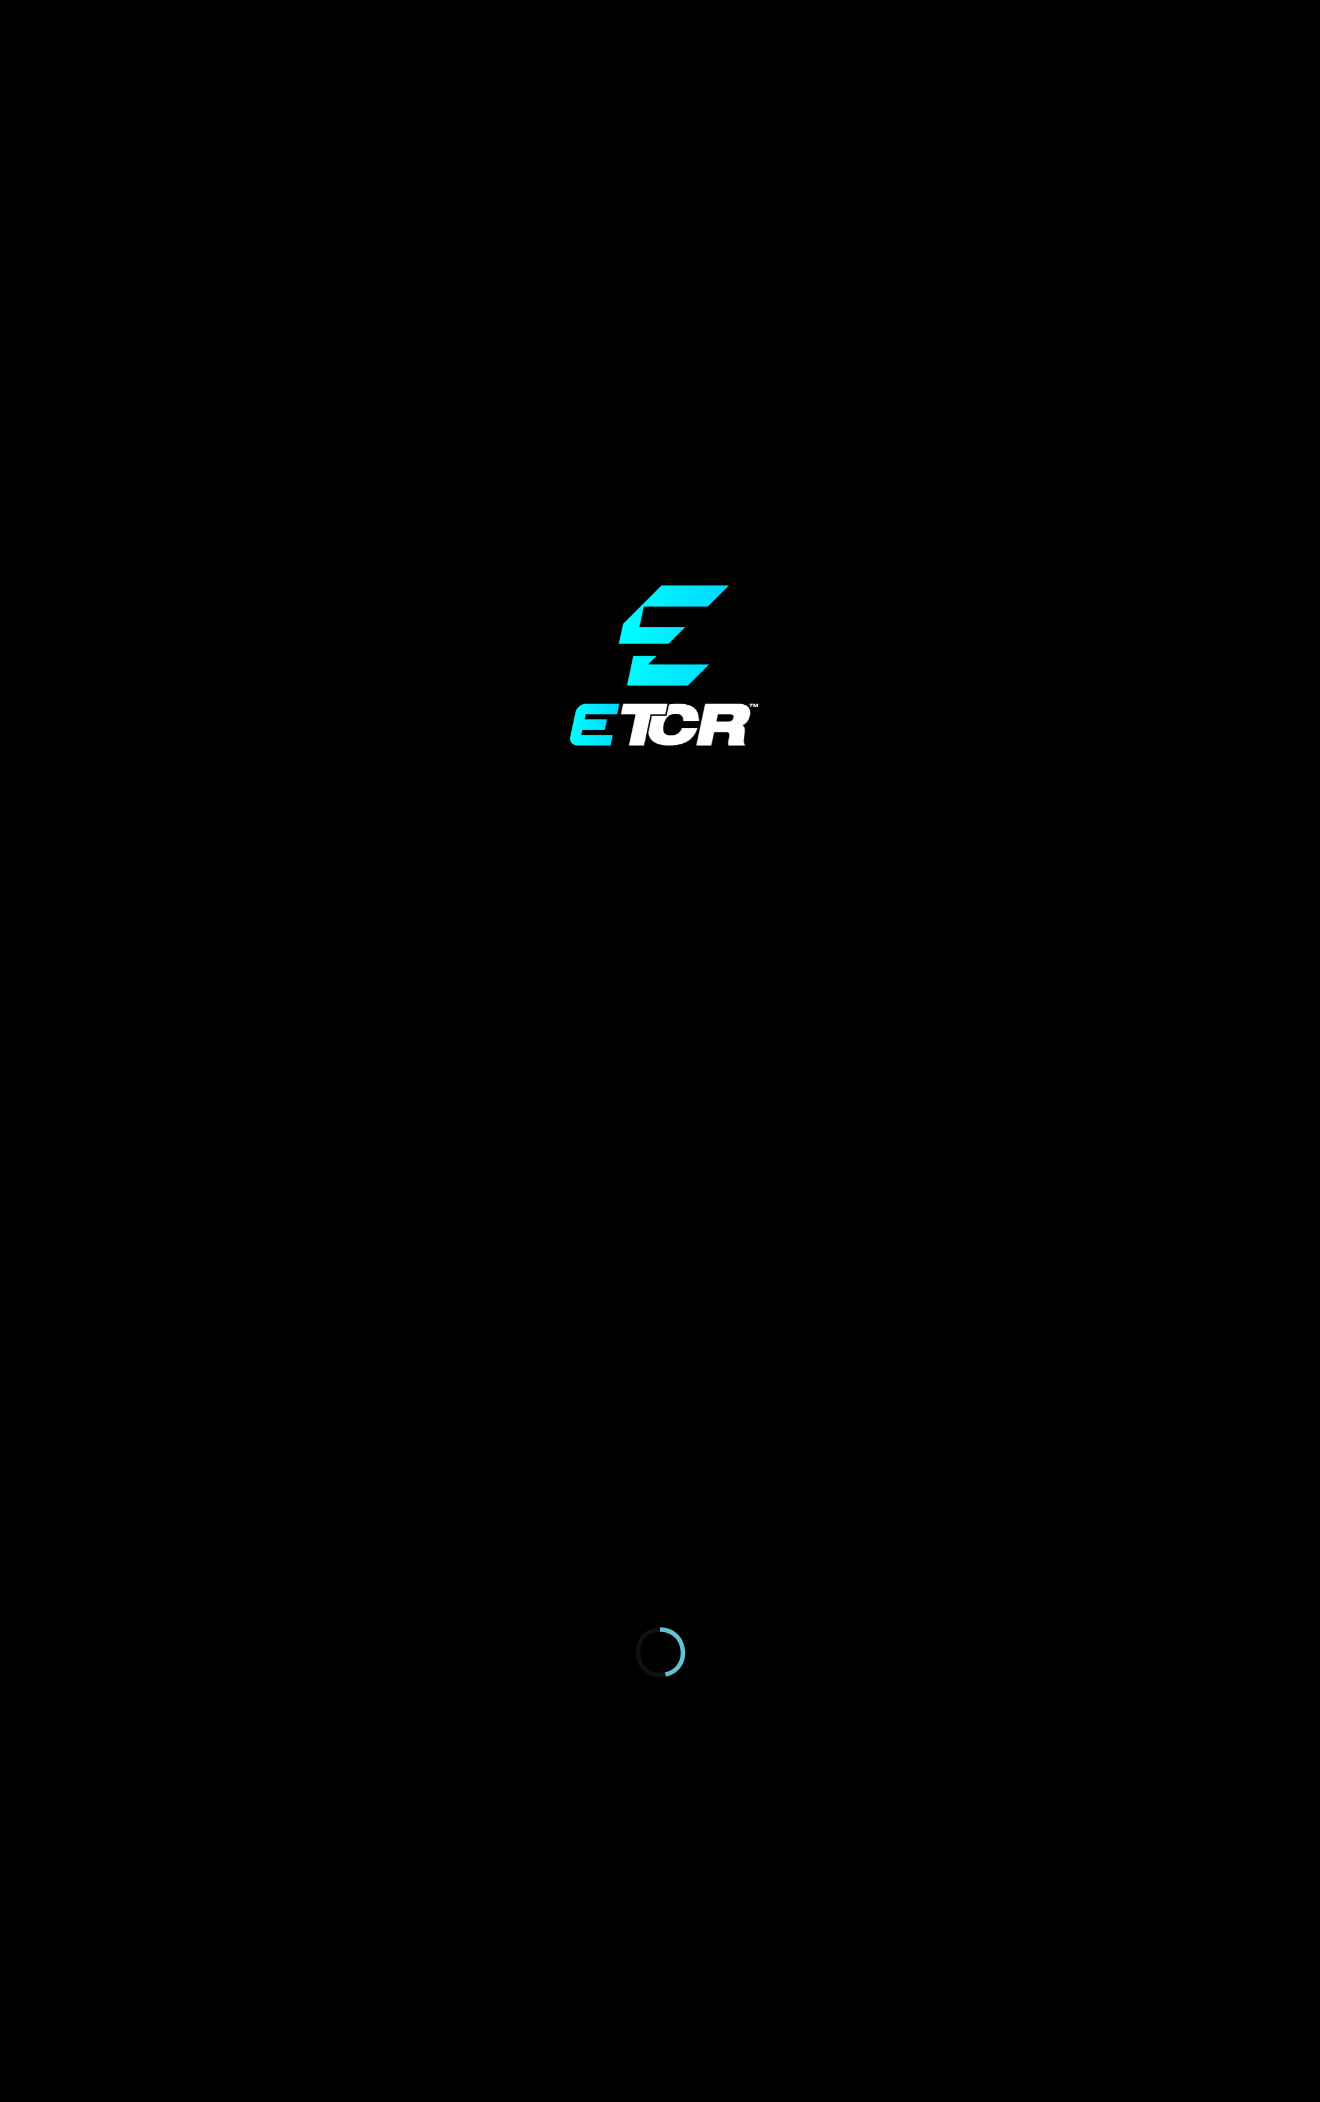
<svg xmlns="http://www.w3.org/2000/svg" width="1320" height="2102">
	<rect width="100%" height="100%" fill="#000000" />
	<image x="570" y="585" width="189" height="161" href="assets/img1.png" />
	<path d="M660 1629.5C690.5 1629.5 690.5 1675 660.5 1675C630.5 1675 630.5 1629.5 660.5 1629.5Z" fill="none" stroke="#111111" stroke-width="4.5" />
	<path d="M660 1629.5C687.5 1629.5 691.5 1669 665.5 1674.5" fill="none" stroke="#63C3D1" stroke-width="4.5" />
</svg>
